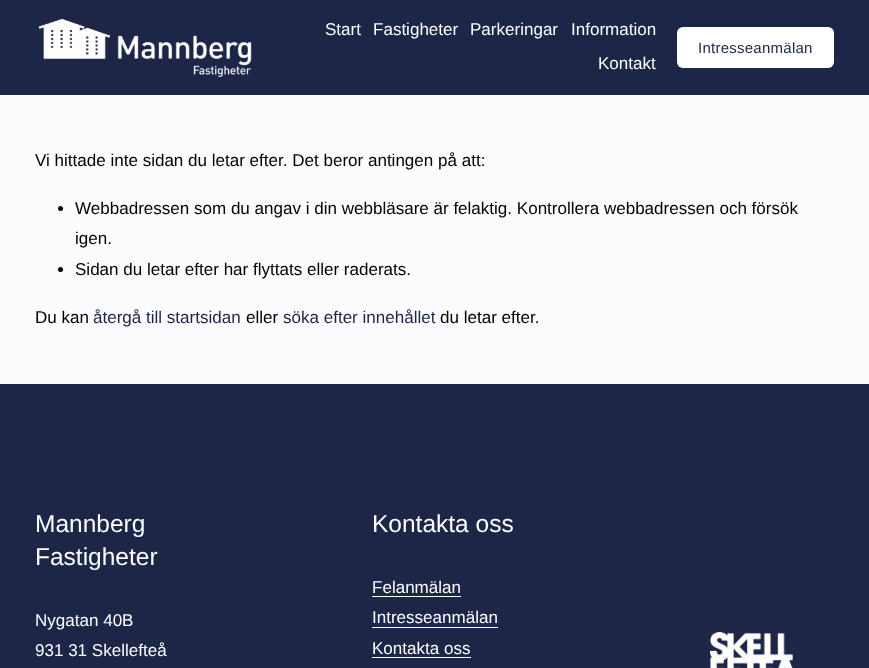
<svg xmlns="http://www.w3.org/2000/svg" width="869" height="668">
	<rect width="100%" height="100%" fill="#FCFCFF" />
	<rect x="0" y="0" width="869" height="95" fill="#1D2647" />
	<image x="38" y="19" width="214" height="59" href="assets/img1.png" />
	<g font-family="Liberation Sans" font-size="17.05" fill="#FCFCFF">
		<text x="325" y="35">Start</text>
		<text x="373" y="35">Fastigheter</text>
		<text x="470" y="35">Parkeringar</text>
		<text x="571" y="35">Information</text>
		<text x="598" y="69">Kontakt</text>
	</g>
	<rect x="677" y="27" width="157" height="41" rx="6" fill="#FFFFFF" />
	<text x="698" y="53" font-family="Liberation Sans" font-size="15" letter-spacing="0.25" fill="#1D2647">Intresseanmälan</text>
	<text x="35" y="166" font-family="Liberation Sans" font-size="17.05" fill="#000000">Vi hittade inte sidan du letar efter. Det beror antingen på att:</text>
	<circle cx="60.5" cy="208.5" r="2.5" fill="#000000" />
	<g font-family="Liberation Sans" font-size="17.05" fill="#000000">
		<text x="75" y="214">Webbadressen som du angav i din webbläsare är felaktig. Kontrollera webbadressen och försök</text>
		<text x="75" y="244">igen.</text>
	</g>
	<circle cx="60.5" cy="269.5" r="2.5" fill="#000000" />
	<g font-family="Liberation Sans" font-size="17.05" fill="#000000">
		<text x="75" y="275">Sidan du letar efter har flyttats eller raderats.</text>
		<text x="35" y="323">Du kan</text>
	</g>
	<text x="93" y="323" font-family="Liberation Sans" font-size="17.05" fill="#1D2647">återgå till startsidan</text>
	<text x="246" y="323" font-family="Liberation Sans" font-size="17.05" fill="#000000">eller</text>
	<text x="283" y="323" font-family="Liberation Sans" font-size="17.05" fill="#1D2647">söka efter innehållet</text>
	<text x="440" y="323" font-family="Liberation Sans" font-size="17.05" fill="#000000">du letar efter.</text>
	<rect x="0" y="384" width="869" height="284" fill="#1D2647" />
	<g font-family="Liberation Sans" font-size="24.5" fill="#FCFCFF">
		<text x="35" y="532">Mannberg</text>
		<text x="35" y="565">Fastigheter</text>
	</g>
	<g font-family="Liberation Sans" font-size="17.05" fill="#FCFCFF">
		<text x="35" y="626">Nygatan 40B</text>
		<text x="35" y="656">931 31 Skellefteå</text>
	</g>
	<text x="372" y="532" font-family="Liberation Sans" font-size="24.5" fill="#FCFCFF">Kontakta oss</text>
	<text x="372" y="593" font-family="Liberation Sans" font-size="17.05" fill="#FCFCFF">Felanmälan</text>
	<rect x="372" y="596" width="89" height="1" fill="#FFFFFF" />
	<text x="372" y="623" font-family="Liberation Sans" font-size="17.05" fill="#FCFCFF">Intresseanmälan</text>
	<rect x="372" y="627" width="126" height="1" fill="#FFFFFF" />
	<text x="372" y="654" font-family="Liberation Sans" font-size="17.05" fill="#FCFCFF">Kontakta oss</text>
	<rect x="372" y="657" width="99" height="1" fill="#FFFFFF" />
	<image x="710" y="632" width="83" height="36" href="assets/img2.png" />
</svg>
